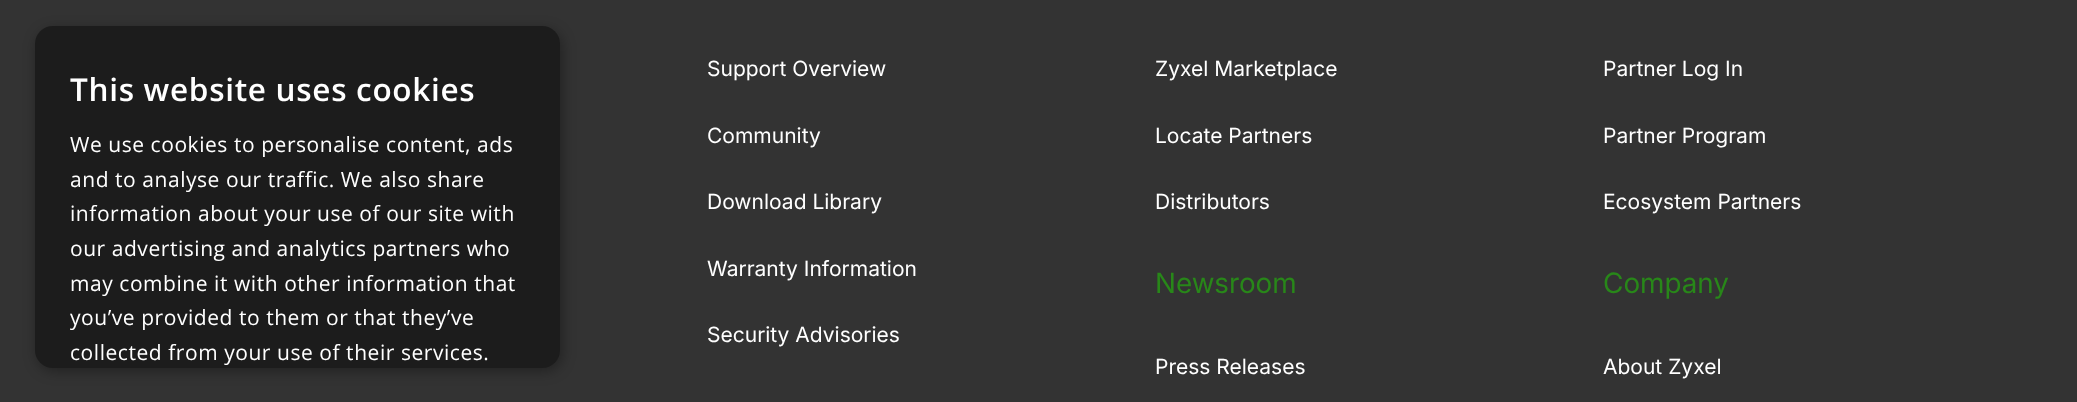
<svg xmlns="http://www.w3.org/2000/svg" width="2077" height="402">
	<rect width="100%" height="100%" fill="#333333" />
	<rect x="37" y="30" width="525" height="341" rx="18" fill="#000000" fill-opacity="0.35" filter="blur(7px)" />
	<rect x="35" y="26" width="525" height="342" rx="18" fill="#1C1C1C" />
	<text x="70" y="101" font-family="Open Sans" font-size="31.5" font-weight="600" letter-spacing="0.7" fill="#FFFFFF">This website uses cookies</text>
	<g font-family="Open Sans" font-size="21" letter-spacing="0.55" fill="#FFFFFF">
		<text x="70" y="152">We use cookies to personalise content, ads</text>
		<text x="70" y="187">and to analyse our traffic. We also share</text>
		<text x="70" y="221">information about your use of our site with</text>
		<text x="70" y="256">our advertising and analytics partners who</text>
		<text x="70" y="291">may combine it with other information that</text>
		<text x="70" y="325">you’ve provided to them or that they’ve</text>
		<text x="70" y="360">collected from your use of their services.</text>
	</g>
	<g font-family="Inter" font-size="21" fill="#FFFFFF">
		<text x="707" y="76">Support Overview</text>
		<text x="707" y="143">Community</text>
		<text x="707" y="209">Download Library</text>
		<text x="707" y="276">Warranty Information</text>
		<text x="707" y="342">Security Advisories</text>
		<text x="1155" y="76">Zyxel Marketplace</text>
		<text x="1155" y="143">Locate Partners</text>
		<text x="1155" y="209">Distributors</text>
	</g>
	<text x="1155" y="293" font-family="'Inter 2'" font-size="28" fill="#288719">Newsroom</text>
	<g font-family="Inter" font-size="21" fill="#FFFFFF">
		<text x="1155" y="374">Press Releases</text>
		<text x="1603" y="76">Partner Log In</text>
		<text x="1603" y="143">Partner Program</text>
		<text x="1603" y="209">Ecosystem Partners</text>
	</g>
	<text x="1603" y="293" font-family="'Inter 2'" font-size="28" fill="#288719">Company</text>
	<text x="1603" y="374" font-family="Inter" font-size="21" fill="#FFFFFF">About Zyxel</text>
</svg>
